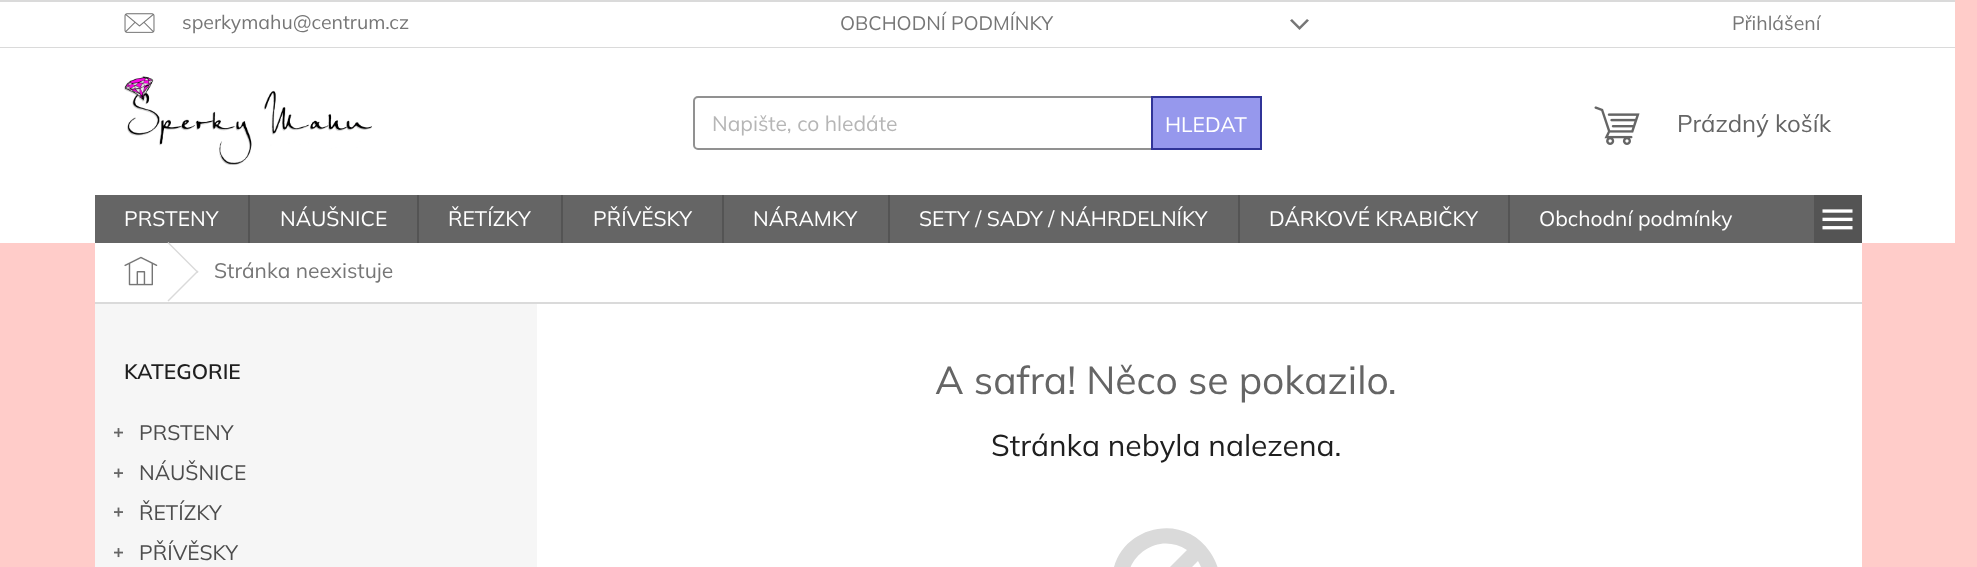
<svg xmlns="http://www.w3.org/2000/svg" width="1977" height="567">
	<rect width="100%" height="100%" fill="#FFCCC9" />
	<rect x="0" y="2" width="1955" height="45" fill="#FFFFFF" />
	<rect x="0" y="0" width="1955" height="2" fill="#DADADA" />
	<rect x="0" y="47" width="1955" height="1" fill="#DADADA" />
	<image x="124" y="13" width="31" height="20" href="assets/img1.png" />
	<g font-family="Mulish" font-size="19.5" fill="#767676">
		<text x="182" y="29">sperkymahu@centrum.cz</text>
		<text x="840" y="30">OBCHODNÍ PODMÍNKY</text>
	</g>
	<path d="M1290 20.5L1292 19L1299.5 26.5L1307 19L1309 20.5L1299.5 30Z" fill="#767676" />
	<text x="1732" y="30" font-family="Mulish" font-size="19.5" fill="#767676">Přihlášení</text>
	<rect x="0" y="48" width="1955" height="195" fill="#FFFFFF" />
	<image x="124" y="76" width="248" height="89" href="assets/img2.png" />
	<rect x="694" y="97" width="567" height="52" rx="4" fill="none" stroke="#919191" stroke-width="2" />
	<text x="712" y="131" font-family="Mulish" font-size="21" fill="#B6B6B6">Napište, co hledáte</text>
	<rect x="1152" y="97" width="109" height="52" fill="#9698ED" stroke="#303498" stroke-width="2" />
	<text x="1165" y="132" font-family="Mulish" font-size="21" fill="#FFFFFF">HLEDAT</text>
	<image x="1594" y="106" width="46" height="39" href="assets/img3.png" />
	<text x="1677" y="132" font-family="Mulish" font-size="24" fill="#656565">Prázdný košík</text>
	<rect x="95" y="195" width="1719" height="48" fill="#656565" />
	<text x="124" y="226" font-family="Mulish" font-size="21" fill="#FFFFFF">PRSTENY</text>
	<rect x="248" y="195" width="2" height="48" fill="#545454" />
	<text x="280" y="226" font-family="Mulish" font-size="21" fill="#FFFFFF">NÁUŠNICE</text>
	<rect x="417" y="195" width="2" height="48" fill="#545454" />
	<text x="448" y="226" font-family="Mulish" font-size="21" fill="#FFFFFF">ŘETÍZKY</text>
	<rect x="561" y="195" width="2" height="48" fill="#545454" />
	<text x="593" y="226" font-family="Mulish" font-size="21" fill="#FFFFFF">PŘÍVĚSKY</text>
	<rect x="722" y="195" width="2" height="48" fill="#545454" />
	<text x="753" y="226" font-family="Mulish" font-size="21" fill="#FFFFFF">NÁRAMKY</text>
	<rect x="888" y="195" width="2" height="48" fill="#545454" />
	<text x="919" y="226" font-family="Mulish" font-size="21" fill="#FFFFFF">SETY / SADY / NÁHRDELNÍKY</text>
	<rect x="1238" y="195" width="2" height="48" fill="#545454" />
	<text x="1269" y="226" font-family="Mulish" font-size="21" fill="#FFFFFF">DÁRKOVÉ KRABIČKY</text>
	<rect x="1508" y="195" width="2" height="48" fill="#545454" />
	<text x="1539" y="226" font-family="Mulish" font-size="21" fill="#FFFFFF">Obchodní podmínky</text>
	<rect x="1814" y="195" width="48" height="48" fill="#545454" />
	<image x="1822" y="209" width="31" height="21" href="assets/img4.png" />
	<rect x="95" y="243" width="1767" height="59" fill="#FFFFFF" />
	<rect x="95" y="302" width="1767" height="2" fill="#DADADA" />
	<image x="124" y="256" width="34" height="30" href="assets/img5.png" />
	<path d="M167.5 243L168.5 242L198.5 272L197.5 273Z" fill="#DADADA" />
	<path d="M197.5 270.5L198.5 271.5L168.5 301.5L167.5 300.5Z" fill="#DADADA" />
	<text x="214" y="278" font-family="Mulish" font-size="21" fill="#767676">Stránka neexistuje</text>
	<rect x="537" y="304" width="1325" height="263" fill="#FFFFFF" />
	<rect x="95" y="304" width="442" height="263" fill="#F6F6F6" />
	<text x="124" y="379" font-family="Mulish" font-size="21" font-weight="600" fill="#1F1F1F">KATEGORIE</text>
	<image x="114" y="428" width="9" height="10" href="assets/img6.png" />
	<text x="139" y="440" font-family="Mulish" font-size="21" fill="#4D4D4D">PRSTENY</text>
	<image x="114" y="468" width="9" height="10" href="assets/img7.png" />
	<text x="139" y="480" font-family="Mulish" font-size="21" fill="#4D4D4D">NÁUŠNICE</text>
	<image x="114" y="507" width="9" height="10" href="assets/img7.png" />
	<text x="139" y="520" font-family="Mulish" font-size="21" fill="#4D4D4D">ŘETÍZKY</text>
	<image x="114" y="548" width="9" height="10" href="assets/img6.png" />
	<text x="139" y="560" font-family="Mulish" font-size="21" fill="#4D4D4D">PŘÍVĚSKY</text>
	<text x="935" y="394" font-family="Mulish" font-size="39" fill="#656565">A safra! Něco se pokazilo.</text>
	<text x="991" y="456" font-family="Mulish" font-size="30" fill="#1F1F1F">Stránka nebyla nalezena.</text>
	<path d="M1204 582C1204 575 1202 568 1198 561L1145 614C1170 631 1204 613 1204 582ZM1134 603L1187 550C1152 527 1111 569 1134 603ZM1220 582C1220 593 1216 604 1210 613C1181 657 1112 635 1112 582C1112 529 1181 508 1210 552C1216 561 1220 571 1220 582Z" fill="#DADADA" />
</svg>
